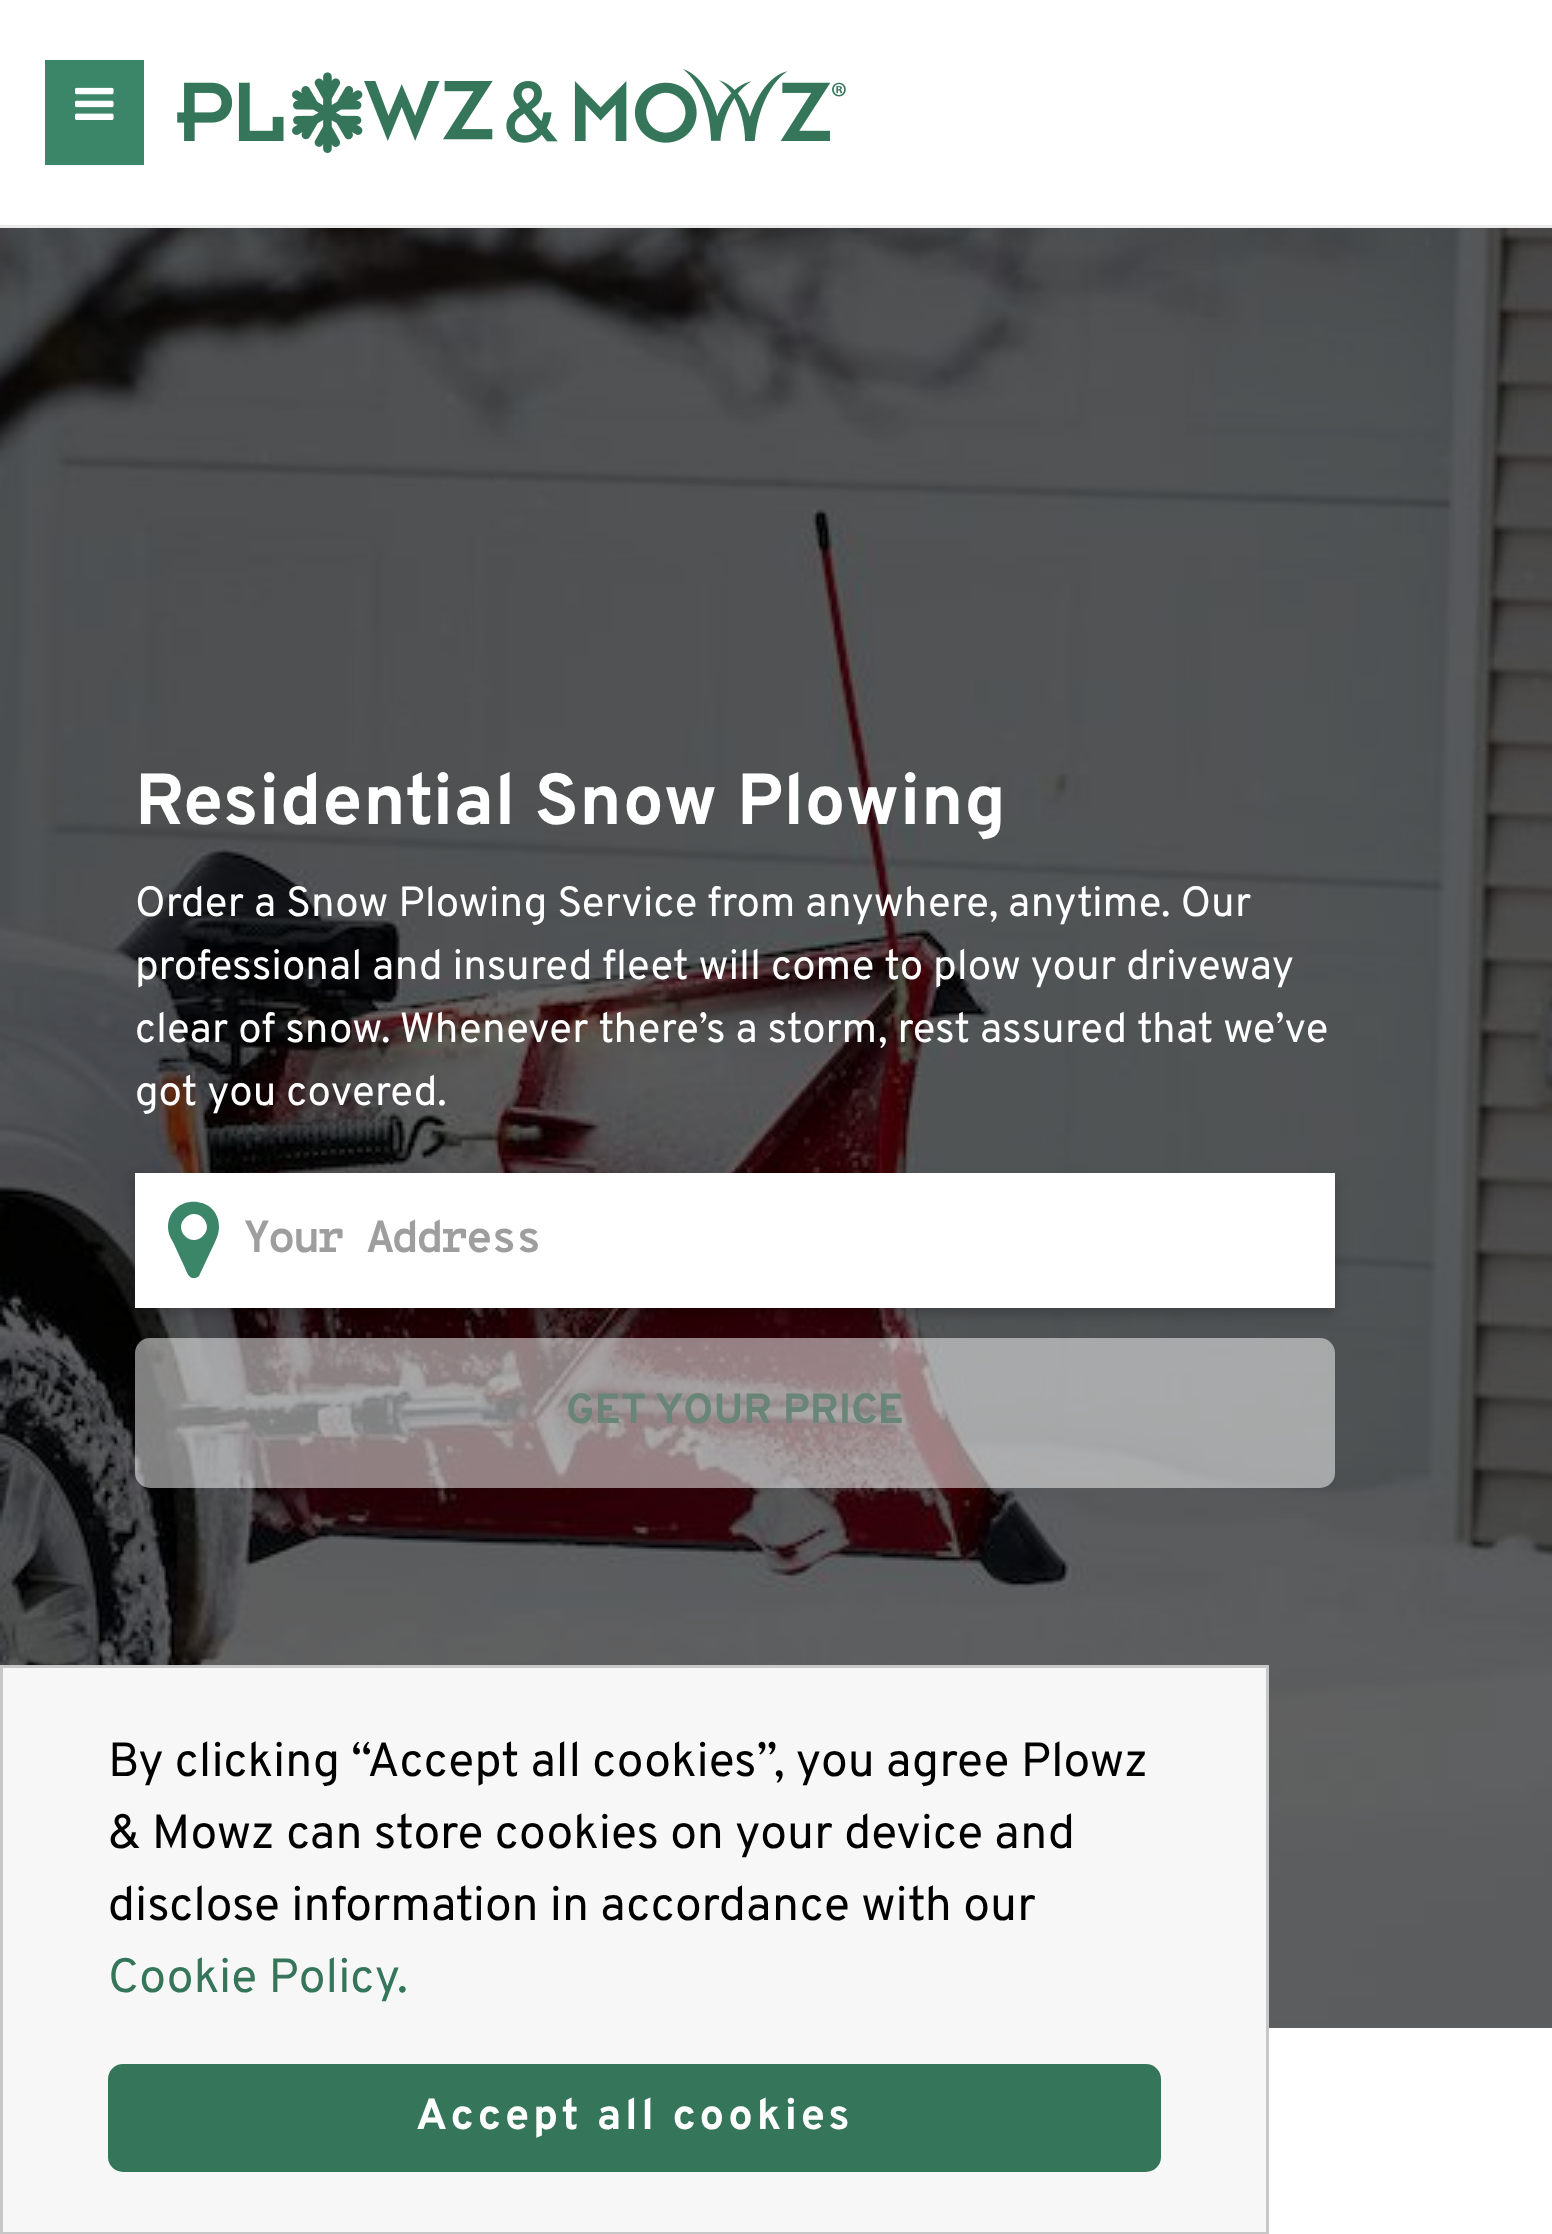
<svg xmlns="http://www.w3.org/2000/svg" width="1552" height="2234">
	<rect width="100%" height="100%" fill="#FFFFFF" />
	<rect x="0" y="225" width="1552" height="3" fill="#EAEAEA" />
	<rect x="45" y="60" width="99" height="105" fill="#3B8669" />
	<image x="75" y="87" width="39" height="33" href="assets/img1.png" />
	<image x="177" y="69" width="669" height="84" href="assets/img2.png" />
	<image x="0" y="228" width="1552" height="1800" href="assets/img3.png" />
	<text x="135" y="824" font-family="Overpass" font-size="72" font-weight="700" letter-spacing="0.6" fill="#FFFFFF">Residential Snow Plowing</text>
	<g font-family="Overpass" font-size="42" fill="#FFFFFF">
		<text x="135" y="916">Order a Snow Plowing Service from anywhere, anytime. Our</text>
		<text x="135" y="979">professional and insured fleet will come to plow your driveway</text>
		<text x="135" y="1042">clear of snow. Whenever there’s a storm, rest assured that we’ve</text>
		<text x="135" y="1105">got you covered.</text>
	</g>
	<rect x="135" y="1179" width="1200" height="135" fill="#000000" fill-opacity="0.2" filter="blur(6px)" />
	<rect x="135" y="1173" width="1200" height="135" fill="#FFFFFF" />
	<path d="M203 1236C215 1224 197 1206 185 1218C173 1230 191 1248 203 1236ZM219 1227C219 1233 217 1237 215 1242L199 1276C198 1277 196 1278 195 1278C189 1279 187 1273 185 1268L173 1242C170 1237 168 1233 168 1227C169 1193 219 1194 219 1227Z" fill="#3B8669" />
	<text x="243" y="1252" font-family="Overpass Mono" font-size="45" font-weight="700" letter-spacing="-3" fill="#9E9E9E">Your Address</text>
	<rect x="135" y="1338" width="1200" height="150" rx="15" fill="#FFFFFF" fill-opacity="0.5" />
	<text x="566" y="1423" font-family="Overpass" font-size="42" font-weight="700" fill="#698578">GET YOUR PRICE</text>
	<rect x="1.5" y="1666.5" width="1266" height="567" fill="#F7F7F7" stroke="#C7C7C7" stroke-width="3" />
	<g font-family="Overpass" font-size="48" fill="#000000">
		<text x="108" y="1776">By clicking “Accept all cookies”, you agree Plowz</text>
		<text x="108" y="1848">&amp; Mowz can store cookies on your device and</text>
		<text x="108" y="1920">disclose information in accordance with our</text>
	</g>
	<text x="108" y="1992" font-family="Overpass" font-size="48" fill="#35765A">Cookie Policy.</text>
	<rect x="108" y="2064" width="1053" height="108" rx="15" fill="#35765A" />
	<text x="416" y="2129" font-family="Overpass" font-size="43.5" font-weight="700" letter-spacing="3.75" fill="#FFFFFF">Accept all cookies</text>
</svg>
